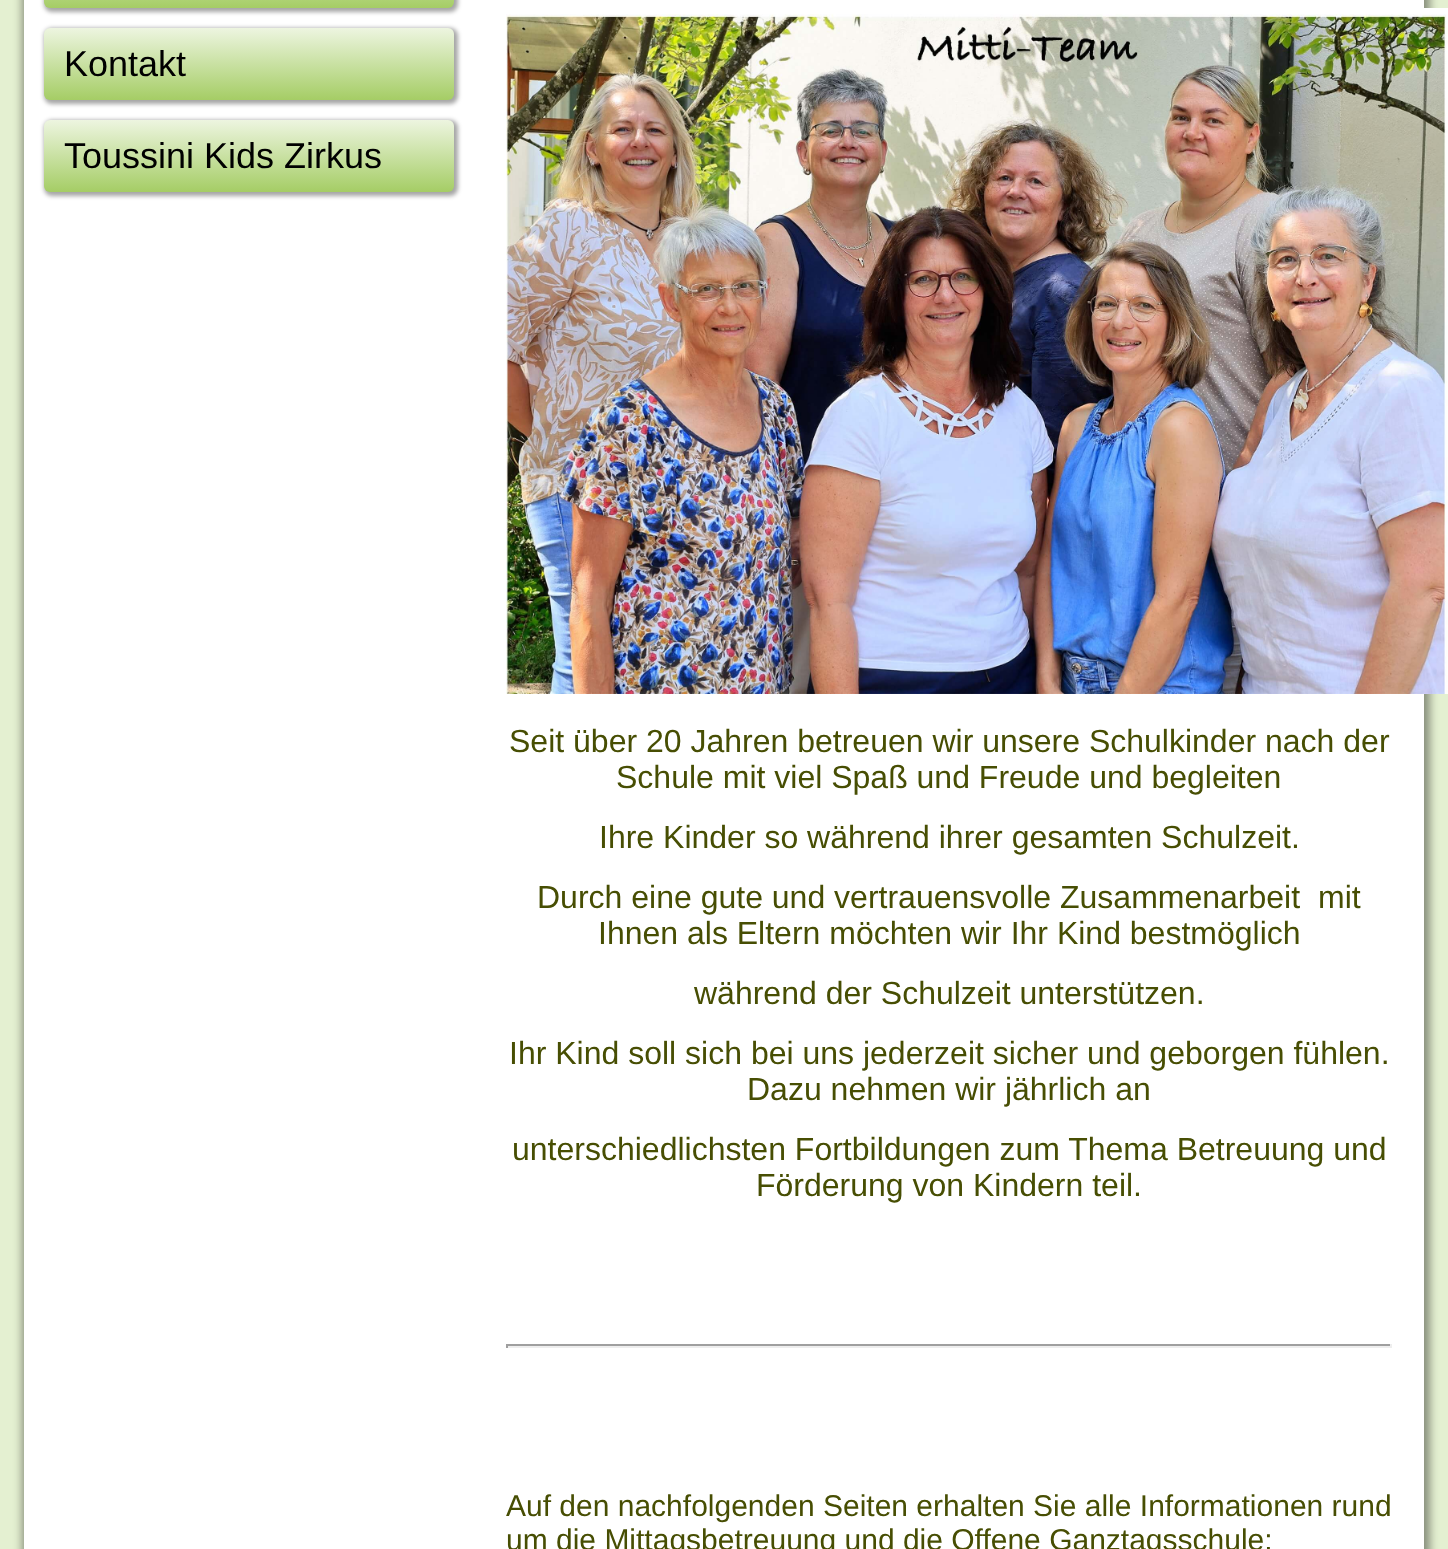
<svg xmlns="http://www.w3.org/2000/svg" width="1448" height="1549">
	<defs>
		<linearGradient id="g1" gradientUnits="userSpaceOnUse" x1="724" y1="-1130" x2="724" y2="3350"><stop offset="0" stop-color="#AED274" /><stop offset="0.11" stop-color="#E4F0D1" /></linearGradient>
		<linearGradient id="g2" gradientUnits="userSpaceOnUse" x1="249" y1="-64" x2="249" y2="8"><stop offset="0" stop-color="#EDF5E0" /><stop offset="1" stop-color="#A5CD65" /></linearGradient>
		<linearGradient id="g3" gradientUnits="userSpaceOnUse" x1="249" y1="28" x2="249" y2="100"><stop offset="0" stop-color="#EDF5E0" /><stop offset="1" stop-color="#A5CD65" /></linearGradient>
		<linearGradient id="g4" gradientUnits="userSpaceOnUse" x1="249" y1="120" x2="249" y2="192"><stop offset="0" stop-color="#EDF5E0" /><stop offset="1" stop-color="#A5CD65" /></linearGradient>
	</defs>
	<rect width="100%" height="100%" fill="#FFFFFF" />
	<rect x="0" y="0" width="1448" height="1549" fill="url(#g1)" />
	<rect x="22" y="-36" width="1408" height="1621" rx="24" fill="#000000" fill-opacity="0.4" filter="blur(4px)" />
	<rect x="24" y="0" width="1400" height="1549" fill="#FFFFFF" />
	<rect x="44" y="-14" width="414" height="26" rx="8" fill="#000000" fill-opacity="0.35" filter="blur(2px)" />
	<rect x="44" y="-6" width="410" height="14" rx="6" fill="url(#g2)" />
	<rect x="44" y="28" width="414" height="76" rx="8" fill="#000000" fill-opacity="0.35" filter="blur(2px)" />
	<rect x="44" y="28" width="410" height="72" rx="6" fill="url(#g3)" />
	<text x="64" y="76" font-family="Liberation Sans" font-size="36" fill="#000000">Kontakt</text>
	<rect x="44" y="120" width="414" height="76" rx="8" fill="#000000" fill-opacity="0.35" filter="blur(2px)" />
	<rect x="44" y="120" width="410" height="72" rx="6" fill="url(#g4)" />
	<text x="64" y="168" font-family="Liberation Sans" font-size="36" fill="#000000">Toussini Kids Zirkus</text>
	<image x="506" y="8" width="942" height="686" href="assets/img1.png" />
	<g font-family="Liberation Sans" font-size="32" fill="#474E03">
		<text x="509" y="752">Seit über 20 Jahren betreuen wir unsere Schulkinder nach der</text>
		<text x="616" y="788">Schule mit viel Spaß und Freude und begleiten</text>
		<text x="599" y="848">Ihre Kinder so während ihrer gesamten Schulzeit.</text>
		<text x="537" y="908">Durch eine gute und vertrauensvolle Zusammenarbeit</text>
		<text x="1318" y="908">mit</text>
		<text x="598" y="944">Ihnen als Eltern möchten wir Ihr Kind bestmöglich</text>
		<text x="694" y="1004">während der Schulzeit unterstützen.</text>
		<text x="509" y="1064">Ihr Kind soll sich bei uns jederzeit sicher und geborgen fühlen.</text>
		<text x="747" y="1100">Dazu nehmen wir jährlich an</text>
		<text x="512" y="1160">unterschiedlichsten Fortbildungen zum Thema Betreuung und</text>
		<text x="756" y="1196">Förderung von Kindern teil.</text>
	</g>
	<rect x="506" y="1344" width="886" height="2" fill="#9F9F9F" />
	<rect x="1390" y="1344" width="2" height="4" fill="#EEEEEE" />
	<rect x="506" y="1346" width="886" height="2" fill="#EEEEEE" />
	<rect x="506" y="1344" width="2" height="4" fill="#9F9F9F" />
	<g font-family="Liberation Sans" font-size="30" fill="#474E03">
		<text x="506" y="1516">Auf den nachfolgenden Seiten erhalten Sie alle Informationen rund</text>
		<text x="506" y="1550">um die Mittagsbetreuung und die Offene Ganztagsschule:</text>
	</g>
</svg>
